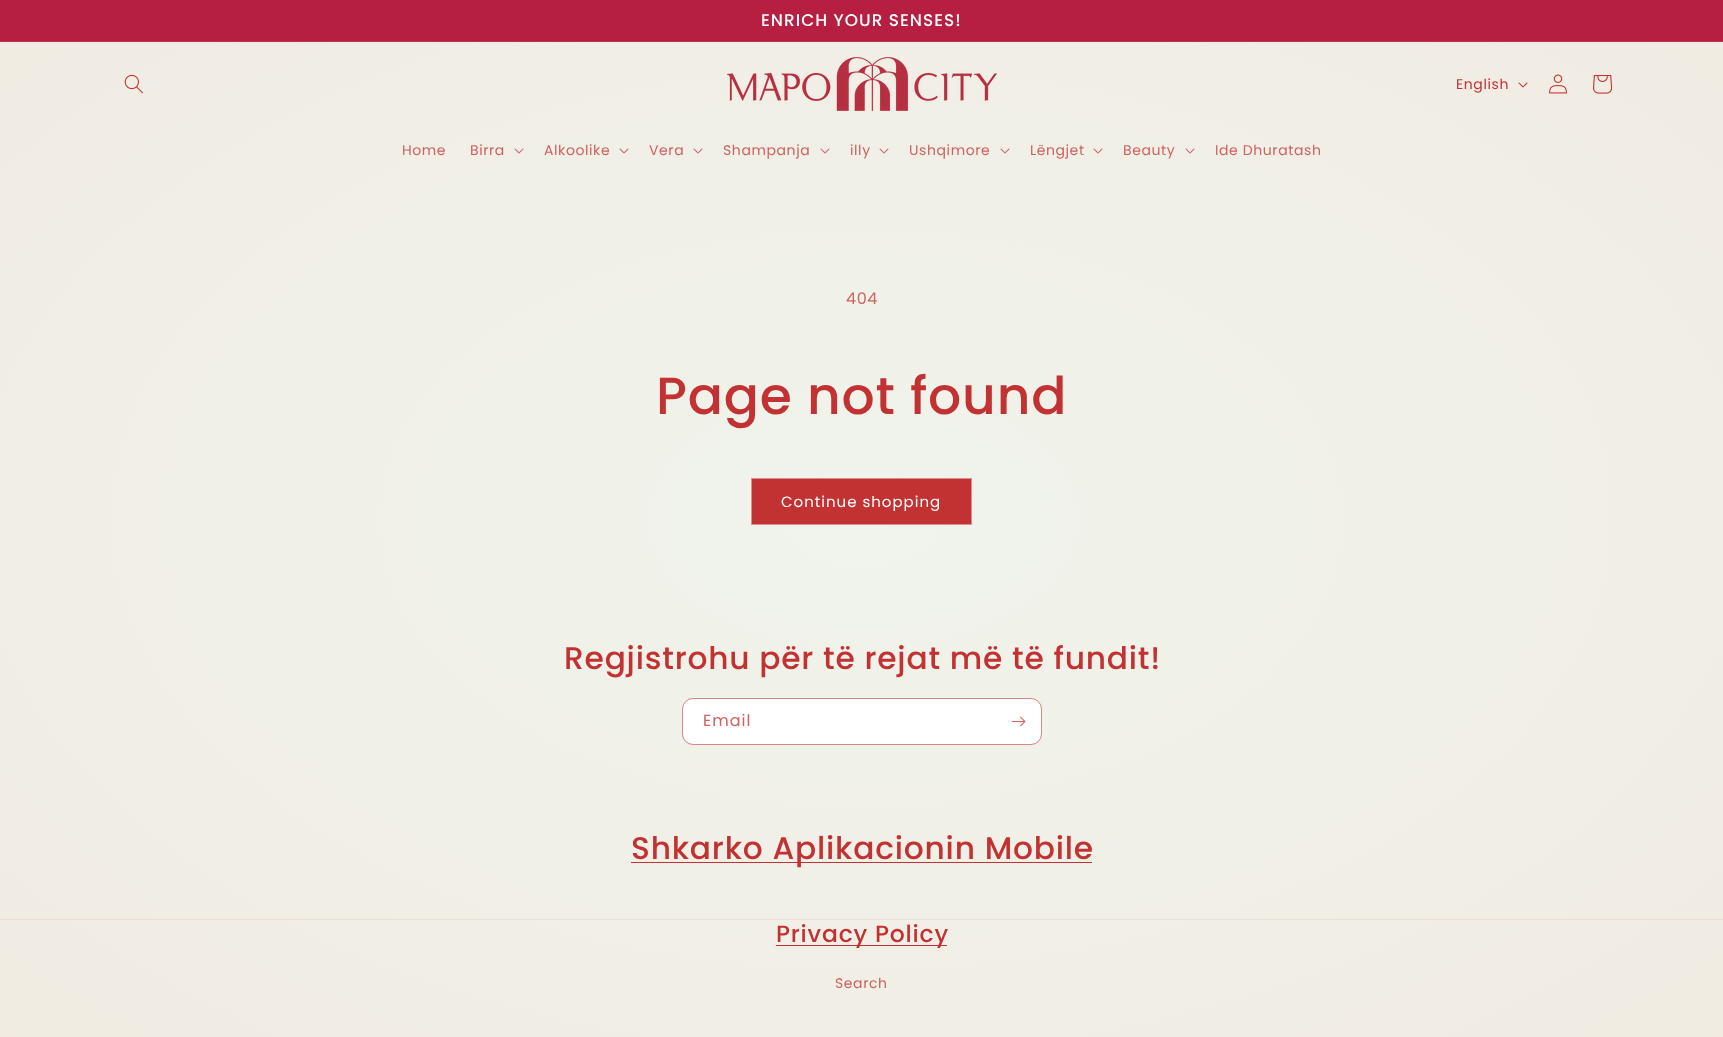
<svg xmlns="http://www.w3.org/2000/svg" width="1723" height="1037">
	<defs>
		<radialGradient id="g1" gradientUnits="userSpaceOnUse" cx="0" cy="0" r="1" gradientTransform="matrix(1218 0 0 733 862 519)"><stop offset="0.01" stop-color="#F0F4EC" /><stop offset="1" stop-color="#F1EBE2" /></radialGradient>
		<radialGradient id="g2" gradientUnits="userSpaceOnUse" cx="0" cy="0" r="1" gradientTransform="matrix(1218 0 0 733 862 519)"><stop offset="0.01" stop-color="#ECE4DD" /><stop offset="1" stop-color="#EDDCD4" /></radialGradient>
	</defs>
	<rect width="100%" height="100%" fill="#FFFFFF" />
	<rect x="0" y="42" width="1723" height="995" fill="url(#g1)" />
	<rect x="0" y="919" width="1723" height="1" fill="url(#g2)" />
	<rect x="0" y="0" width="1723" height="41" fill="#B61E42" />
	<rect x="0" y="41" width="1723" height="1" fill="#BC3051" />
	<text x="761" y="26" font-family="Poppins" font-size="16.9" font-weight="500" letter-spacing="1" fill="#FFFFFF">ENRICH YOUR SENSES!</text>
	<image x="124" y="74" width="19" height="20" href="assets/img1.png" />
	<image x="727" y="57" width="270" height="54" href="assets/img2.png" />
	<text x="1456" y="89" font-family="Poppins" font-size="14" letter-spacing="0.6" fill="#C33232">English</text>
	<image x="1518" y="82" width="10" height="6" href="assets/img3.png" />
	<image x="1549" y="74" width="18" height="20" href="assets/img4.png" />
	<image x="1593" y="75" width="20" height="19" href="assets/img5.png" />
	<g font-family="Poppins" font-size="14" letter-spacing="0.6" fill="#CE6260">
		<text x="402" y="155">Home</text>
		<text x="470" y="155">Birra</text>
	</g>
	<image x="514" y="148" width="10" height="6" href="assets/img6.png" />
	<text x="544" y="155" font-family="Poppins" font-size="14" letter-spacing="0.6" fill="#CE6260">Alkoolike</text>
	<image x="619" y="148" width="10" height="6" href="assets/img7.png" />
	<text x="649" y="155" font-family="Poppins" font-size="14" letter-spacing="0.6" fill="#CE6260">Vera</text>
	<image x="693" y="148" width="10" height="6" href="assets/img7.png" />
	<text x="723" y="155" font-family="Poppins" font-size="14" letter-spacing="0.6" fill="#CE6260">Shampanja</text>
	<image x="820" y="148" width="10" height="6" href="assets/img8.png" />
	<text x="850" y="155" font-family="Poppins" font-size="14" letter-spacing="0.6" fill="#CE6260">illy</text>
	<image x="879" y="148" width="10" height="6" href="assets/img8.png" />
	<text x="909" y="155" font-family="Poppins" font-size="14" letter-spacing="0.6" fill="#CE6260">Ushqimore</text>
	<image x="1000" y="148" width="10" height="6" href="assets/img7.png" />
	<text x="1030" y="155" font-family="Poppins" font-size="14" letter-spacing="0.6" fill="#CE6260">Lëngjet</text>
	<image x="1093" y="148" width="10" height="6" href="assets/img7.png" />
	<text x="1123" y="155" font-family="Poppins" font-size="14" letter-spacing="0.6" fill="#CE6260">Beauty</text>
	<image x="1185" y="148" width="10" height="6" href="assets/img6.png" />
	<text x="1215" y="155" font-family="Poppins" font-size="14" letter-spacing="0.6" fill="#CE6260">Ide Dhuratash</text>
	<text x="846" y="304" font-family="Poppins" font-size="16" letter-spacing="0.6" fill="#CE6260">404</text>
	<text x="656" y="414" font-family="Poppins" font-size="52" font-weight="500" letter-spacing="0.8" fill="#C33232">Page not found</text>
	<rect x="752" y="479" width="219" height="45" fill="#C33232" />
	<rect x="751.5" y="478.5" width="220" height="46" fill="none" stroke="#DE8E8E" />
	<text x="781" y="507" font-family="Poppins" font-size="15" letter-spacing="1" fill="#FFFFFF">Continue shopping</text>
	<text x="564" y="669" font-family="Poppins" font-size="31.25" font-weight="500" letter-spacing="0.8" fill="#C33232">Regjistrohu për të rejat më të fundit!</text>
	<rect x="683" y="699" width="358" height="45" rx="10" fill="#FFFFFF" />
	<rect x="682.5" y="698.5" width="359" height="46" rx="10.5" fill="none" stroke="#C33232" stroke-opacity="0.55" />
	<text x="703" y="726" font-family="Poppins" font-size="16" letter-spacing="1" fill="#CE6260">Email</text>
	<image x="1011" y="716" width="15" height="11" href="assets/img9.png" />
	<rect x="631" y="862" width="461" height="1" fill="#C33232" />
	<text x="631" y="859" font-family="Poppins" font-size="31.25" font-weight="500" letter-spacing="0.8" fill="#C33232">Shkarko Aplikacionin Mobile</text>
	<rect x="776" y="945" width="171" height="1" fill="#C33232" />
	<text x="776" y="942" font-family="Poppins" font-size="23.5" font-weight="500" letter-spacing="0.8" fill="#C33232">Privacy Policy</text>
	<text x="835" y="988" font-family="Poppins" font-size="14" letter-spacing="0.6" fill="#CE6260">Search</text>
</svg>
